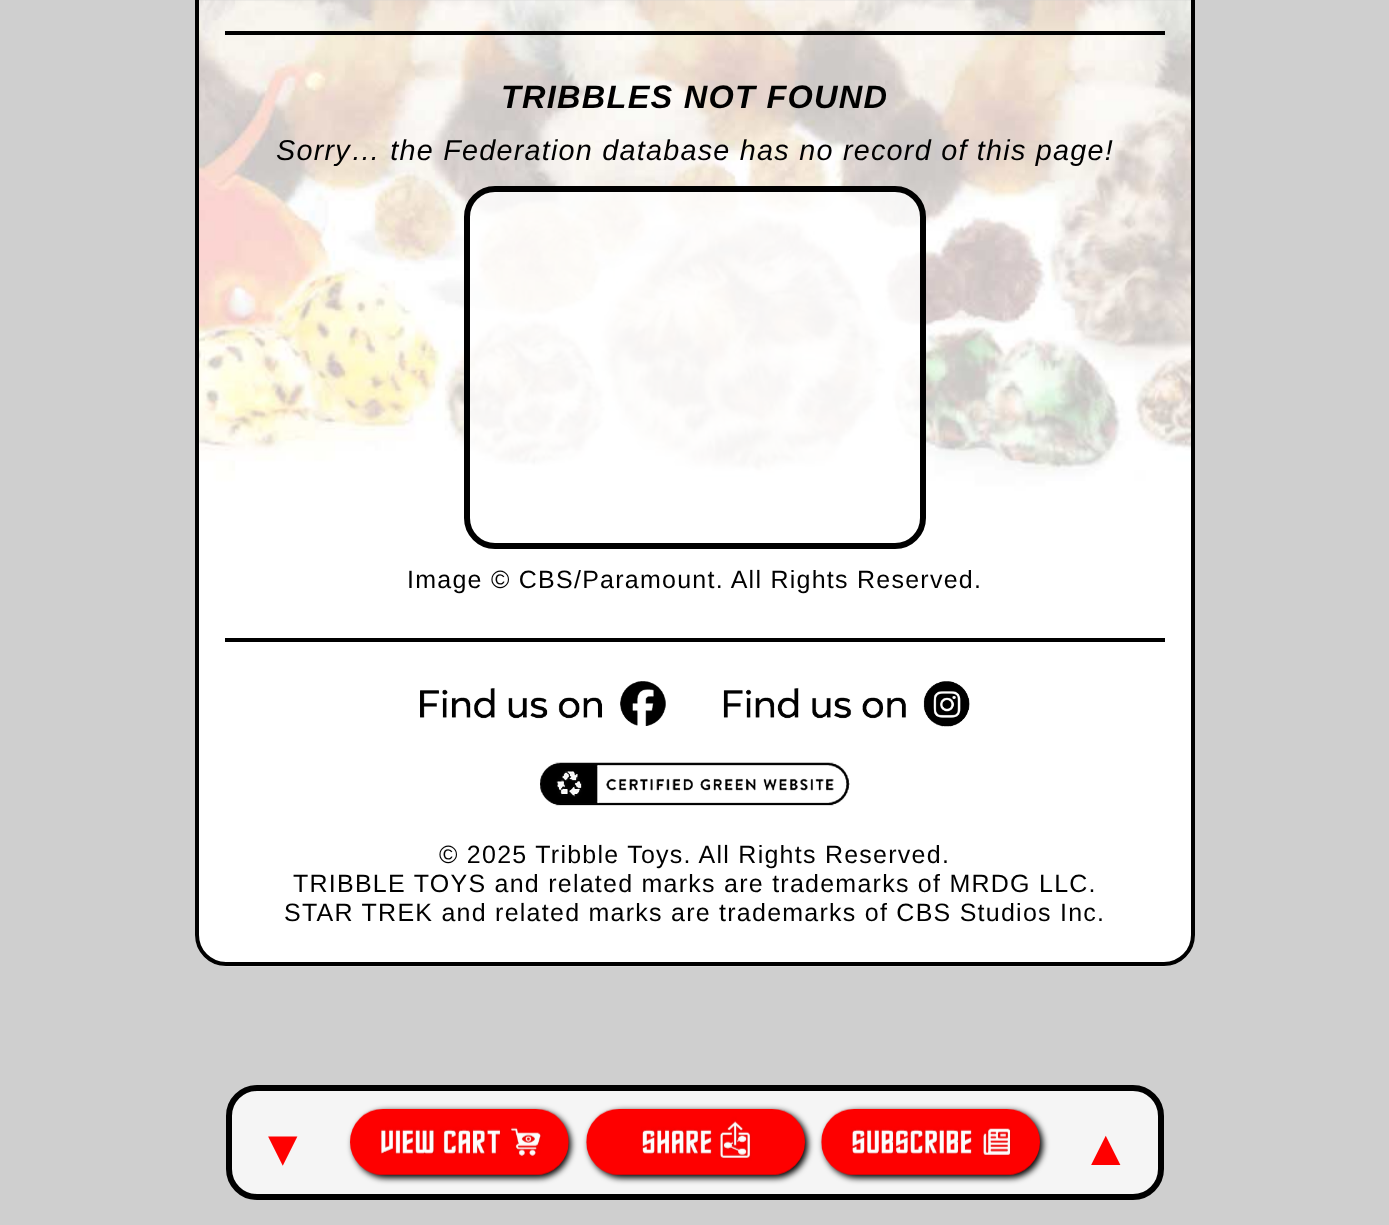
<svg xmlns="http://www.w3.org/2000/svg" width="1389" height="1225">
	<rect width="100%" height="100%" fill="#CFCFCF" />
	<image x="195" y="0" width="1000" height="967" href="assets/img1.png" />
	<rect x="197" y="-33" width="996" height="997" rx="29" fill="none" stroke="#000000" stroke-width="4" />
	<rect x="225" y="31" width="940" height="4" fill="#000000" />
	<text x="501" y="108" font-family="Liberation Sans" font-size="32.5" font-weight="700" font-style="italic" letter-spacing="1.25" fill="#000000">TRIBBLES NOT FOUND</text>
	<text x="276" y="160" font-family="Liberation Sans" font-size="28.75" font-style="italic" letter-spacing="1.25" fill="#000000">Sorry… the Federation database has no record of this page!</text>
	<rect x="467" y="189" width="456" height="357" rx="28" fill="#FFFFFF" fill-opacity="0.8" stroke="#000000" stroke-width="6" />
	<text x="407" y="588" font-family="Liberation Sans" font-size="25" letter-spacing="1.25" fill="#000000">Image © CBS/Paramount. All Rights Reserved.</text>
	<rect x="225" y="638" width="940" height="4" fill="#000000" />
	<image x="420" y="681" width="246" height="45" href="assets/img2.png" />
	<image x="723" y="681" width="247" height="46" href="assets/img3.png" />
	<image x="540" y="762" width="310" height="44" href="assets/img4.png" />
	<g font-family="Liberation Sans" font-size="25" letter-spacing="1.25" fill="#000000">
		<text x="439" y="863">© 2025 Tribble Toys. All Rights Reserved.</text>
		<text x="293" y="892">TRIBBLE TOYS and related marks are trademarks of MRDG LLC.</text>
		<text x="284" y="921">STAR TREK and related marks are trademarks of CBS Studios Inc.</text>
	</g>
	<rect x="229" y="1088" width="932" height="109" rx="28" fill="#F5F5F5" stroke="#000000" stroke-width="6" />
	<text x="258" y="1165" font-family="Liberation Sans" font-size="50" font-weight="700" letter-spacing="1.25" fill="#FF0000">▼</text>
	<rect x="353" y="1111" width="218" height="67" rx="33.5" fill="#000000" filter="blur(3px)" />
	<image x="350" y="1109" width="219" height="66" href="assets/img5.png" />
	<rect x="589" y="1111" width="219" height="67" rx="33.5" fill="#000000" filter="blur(3px)" />
	<rect x="824" y="1111" width="219" height="67" rx="33.5" fill="#000000" filter="blur(3px)" />
	<image x="586" y="1109" width="219" height="66" href="assets/img6.png" />
	<image x="821" y="1109" width="219" height="66" href="assets/img7.png" />
	<text x="1081" y="1165" font-family="Liberation Sans" font-size="50" font-weight="700" letter-spacing="1.25" fill="#FF0000">▲</text>
</svg>
